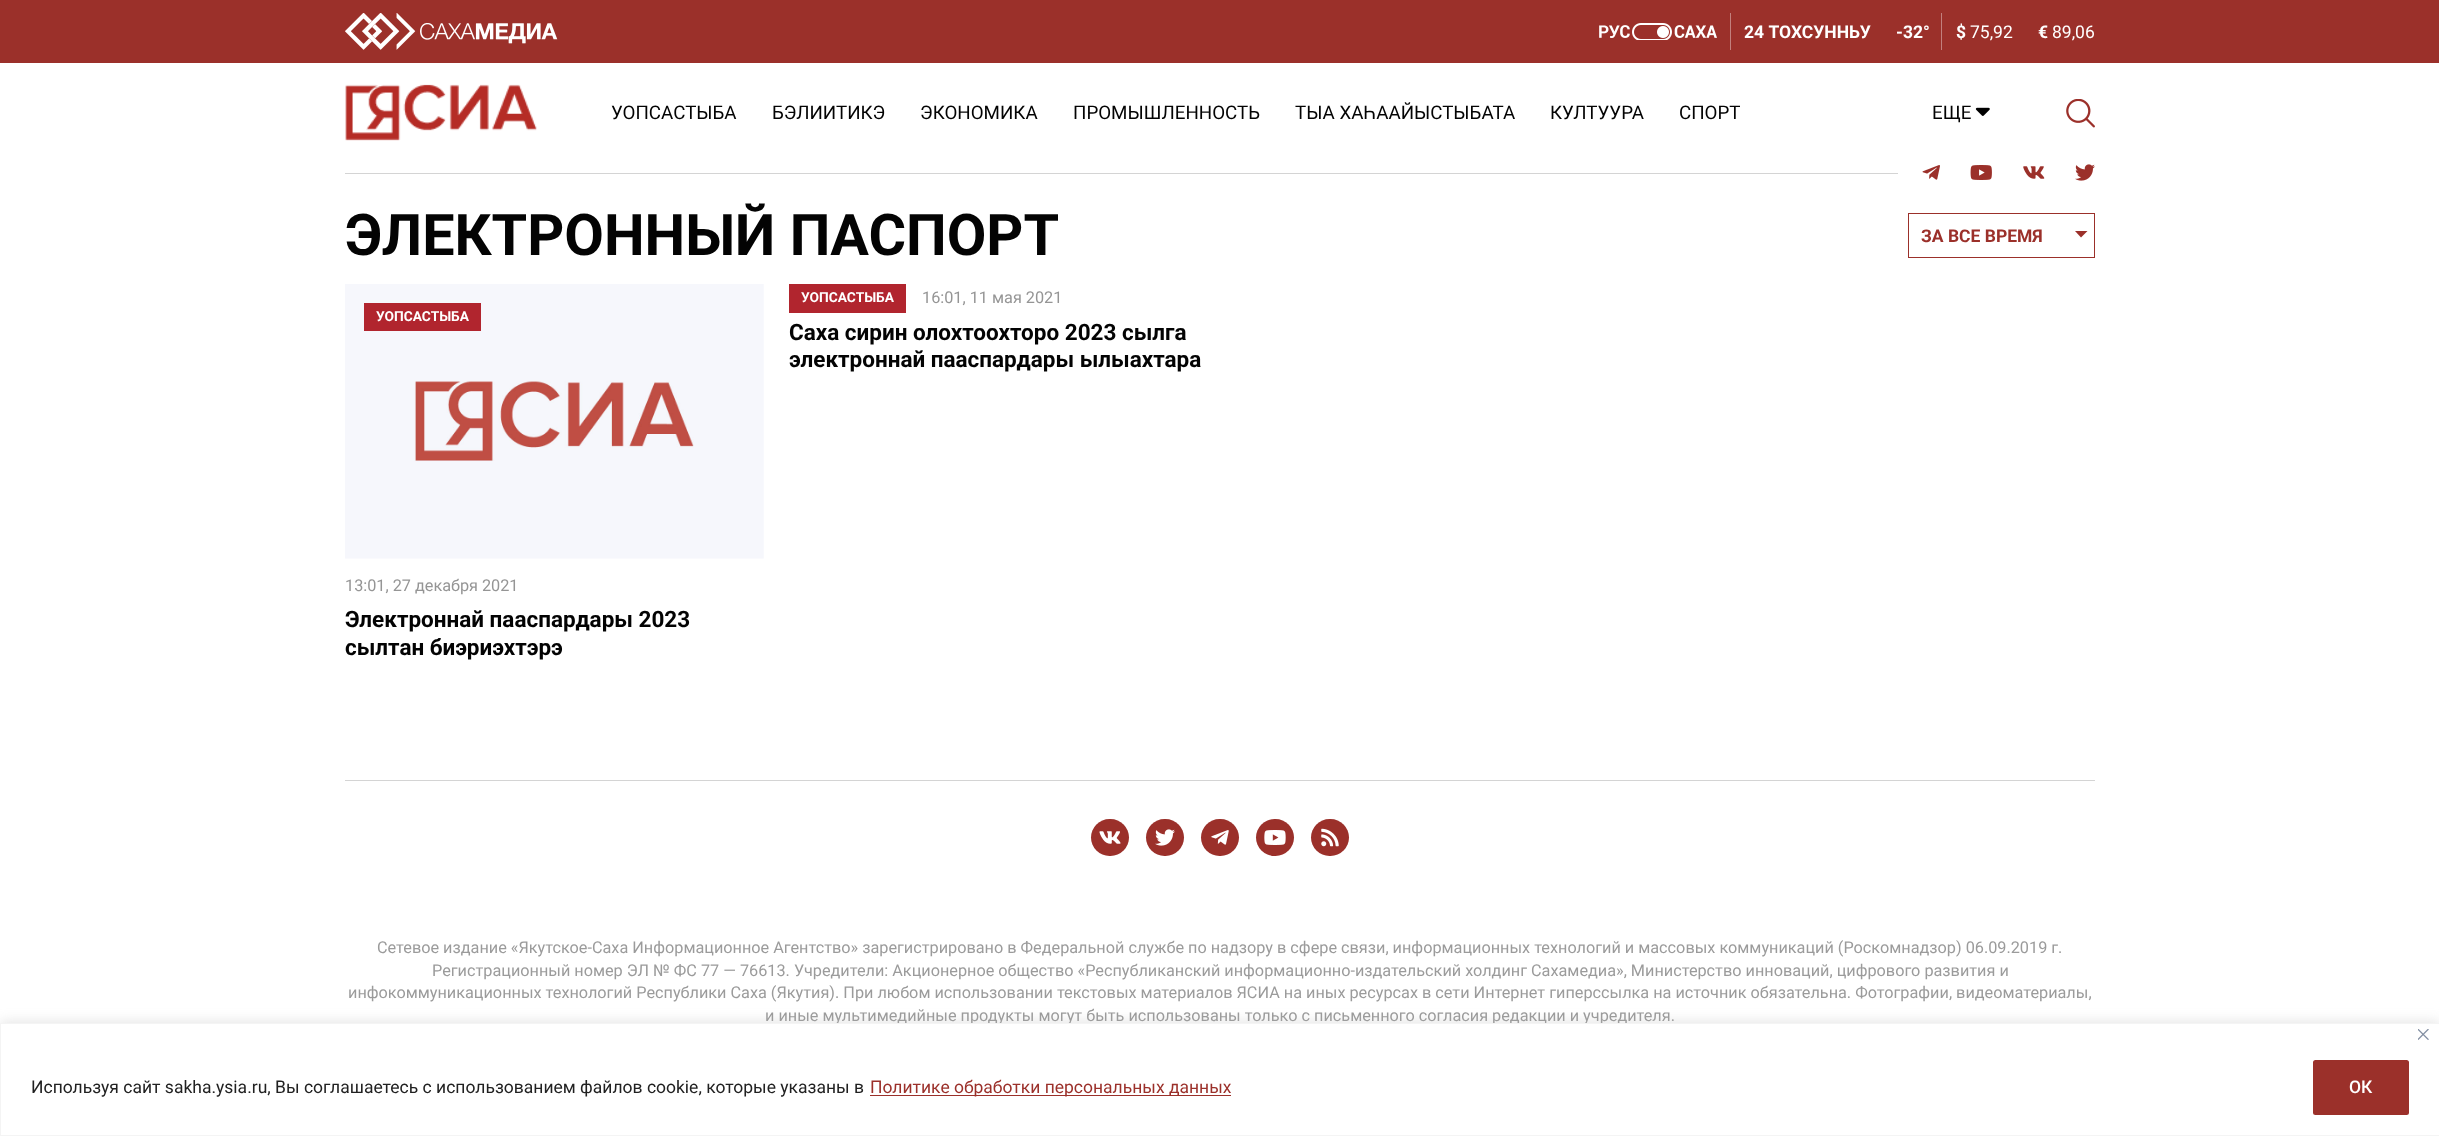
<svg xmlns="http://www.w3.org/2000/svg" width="2439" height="1136">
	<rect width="100%" height="100%" fill="#FFFFFF" />
	<rect x="0" y="0" width="2439" height="63" fill="#9B302A" />
	<image x="345" y="13" width="213" height="37" href="assets/img1.png" />
	<rect x="1730" y="13" width="1" height="37" fill="#C2807D" />
	<image x="1599" y="23" width="118" height="17" href="assets/img2.png" />
	<text x="1744" y="38" font-family="Roboto" font-size="17.5" font-weight="700" fill="#FFFFFF">24 ТОХСУННЬУ</text>
	<rect x="1941" y="13" width="1" height="37" fill="#C2807D" />
	<g font-family="Roboto" font-size="17.5" font-weight="700" fill="#FFFFFF">
		<text x="1896" y="38">-32°</text>
		<text x="1956" y="38">$</text>
	</g>
	<text x="1970" y="38" font-family="Roboto" font-size="17.5" fill="#FFFFFF">75,92</text>
	<text x="2038" y="38" font-family="Roboto" font-size="17.5" font-weight="700" fill="#FFFFFF">€</text>
	<text x="2052" y="38" font-family="Roboto" font-size="17.5" fill="#FFFFFF">89,06</text>
	<image x="345" y="84" width="192" height="57" href="assets/img3.png" />
	<g font-family="Roboto" font-size="18.75" fill="#030303">
		<text x="611" y="119">УОПСАСТЫБА</text>
		<text x="772" y="119">БЭЛИИТИКЭ</text>
		<text x="920" y="119">ЭКОНОМИКА</text>
		<text x="1073" y="119">ПРОМЫШЛЕННОСТЬ</text>
		<text x="1295" y="119">ТЫА ХАҺААЙЫСТЫБАТА</text>
		<text x="1550" y="119">КУЛТУУРА</text>
		<text x="1679" y="119">СПОРТ</text>
		<text x="1932" y="119">ЕЩЕ</text>
	</g>
	<image x="1975" y="107" width="15" height="9" href="assets/img4.png" />
	<image x="2066" y="99" width="29" height="29" href="assets/img5.png" />
	<rect x="345" y="173" width="1553" height="1" fill="#D4D4D4" />
	<image x="1922" y="165" width="18" height="15" href="assets/img6.png" />
	<image x="1970" y="165" width="22" height="15" href="assets/img7.png" />
	<image x="2023" y="166" width="22" height="13" href="assets/img8.png" />
	<image x="2075" y="164" width="20" height="17" href="assets/img9.png" />
	<text x="345" y="255" font-family="Roboto" font-size="57.5" font-weight="700" fill="#030303">ЭЛЕКТРОННЫЙ ПАСПОРТ</text>
	<rect x="1908.5" y="213.5" width="186" height="44" fill="none" stroke="#9B302A" />
	<text x="1921" y="242" font-family="Roboto" font-size="17.5" font-weight="700" fill="#9B302A">ЗА ВСЕ ВРЕМЯ</text>
	<path d="M2075 231H2087.5L2081 237.5Z" fill="#9B302A" />
	<image x="345" y="284" width="419" height="275" href="assets/img10.png" />
	<rect x="364" y="303" width="117" height="28" fill="#B1252E" />
	<text x="376" y="321" font-family="Roboto" font-size="13.75" font-weight="700" fill="#FFFFFF">УОПСАСТЫБА</text>
	<text x="345" y="591" font-family="Roboto" font-size="16.25" fill="#959595">13:01, 27 декабря 2021</text>
	<g font-family="Roboto" font-size="22.5" font-weight="700" fill="#030303">
		<text x="345" y="627">Электроннай пааспардары 2023</text>
		<text x="345" y="655">сылтан биэриэхтэрэ</text>
	</g>
	<rect x="789" y="284" width="117" height="29" fill="#B1252E" />
	<text x="801" y="302" font-family="Roboto" font-size="13.75" font-weight="700" fill="#FFFFFF">УОПСАСТЫБА</text>
	<text x="922" y="303" font-family="Roboto" font-size="16.25" fill="#959595">16:01, 11 мая 2021</text>
	<g font-family="Roboto" font-size="22.5" font-weight="700" fill="#030303">
		<text x="789" y="340">Саха сирин олохтоохторо 2023 сылга</text>
		<text x="789" y="367">электроннай пааспардары ылыахтара</text>
	</g>
	<rect x="345" y="780" width="1750" height="1" fill="#D4D4D4" />
	<rect x="1091" y="819" width="38" height="37" rx="18.5" fill="#9B302A" />
	<image x="1099" y="831" width="22" height="13" href="assets/img11.png" />
	<rect x="1146" y="819" width="38" height="37" rx="18.5" fill="#9B302A" />
	<image x="1155" y="829" width="20" height="17" href="assets/img12.png" />
	<rect x="1201" y="819" width="38" height="37" rx="18.5" fill="#9B302A" />
	<image x="1211" y="830" width="18" height="15" href="assets/img13.png" />
	<rect x="1256" y="819" width="38" height="37" rx="18.5" fill="#9B302A" />
	<image x="1264" y="830" width="22" height="15" href="assets/img14.png" />
	<rect x="1311" y="819" width="38" height="37" rx="18.5" fill="#9B302A" />
	<image x="1321" y="828" width="18" height="19" href="assets/img15.png" />
	<g font-family="Roboto" font-size="16.25" fill="#9B9B9B">
		<text x="377" y="953">Сетевое издание «Якутское-Саха Информационное Агентство» зарегистрировано в Федеральной службе по надзору в сфере связи, информационных технологий и массовых коммуникаций (Роскомнадзор) 06.09.2019 г.</text>
		<text x="432" y="976">Регистрационный номер ЭЛ № ФС 77 — 76613. Учредители: Акционерное общество «Республиканский информационно-издательский холдинг Сахамедиа», Министерство инноваций, цифрового развития и</text>
		<text x="348" y="998">инфокоммуникационных технологий Республики Саха (Якутия). При любом использовании текстовых материалов ЯСИА на иных ресурсах в сети Интернет гиперссылка на источник обязательна. Фотографии, видеоматериалы,</text>
		<text x="765" y="1021">и иные мультимедийные продукты могут быть использованы только с письменного согласия редакции и учредителя.</text>
	</g>
	<rect x="0" y="1021" width="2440" height="114" fill="#ACABAB" fill-opacity="0.3" filter="blur(6px)" />
	<rect x="0.5" y="1023.5" width="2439" height="112" fill="#FFFFFF" stroke="#F4F4F4" />
	<image x="2418" y="1029" width="11" height="11" href="assets/img16.png" />
	<text x="31" y="1093" font-family="Roboto" font-size="17.5" fill="#212121">Используя сайт sakha.ysia.ru, Вы соглашаетесь с использованием файлов cookie, которые указаны в</text>
	<rect x="870" y="1095" width="361" height="1" fill="#9B302A" />
	<text x="870" y="1093" font-family="Roboto" font-size="17.5" fill="#9B302A">Политике обработки персональных данных</text>
	<rect x="2314.5" y="1061.5" width="93" height="52" rx="1" fill="#9B302A" stroke="#9B302A" stroke-width="3" />
	<text x="2349" y="1093" font-family="Roboto" font-size="17.5" font-weight="500" fill="#FFFFFF">ОК</text>
</svg>
